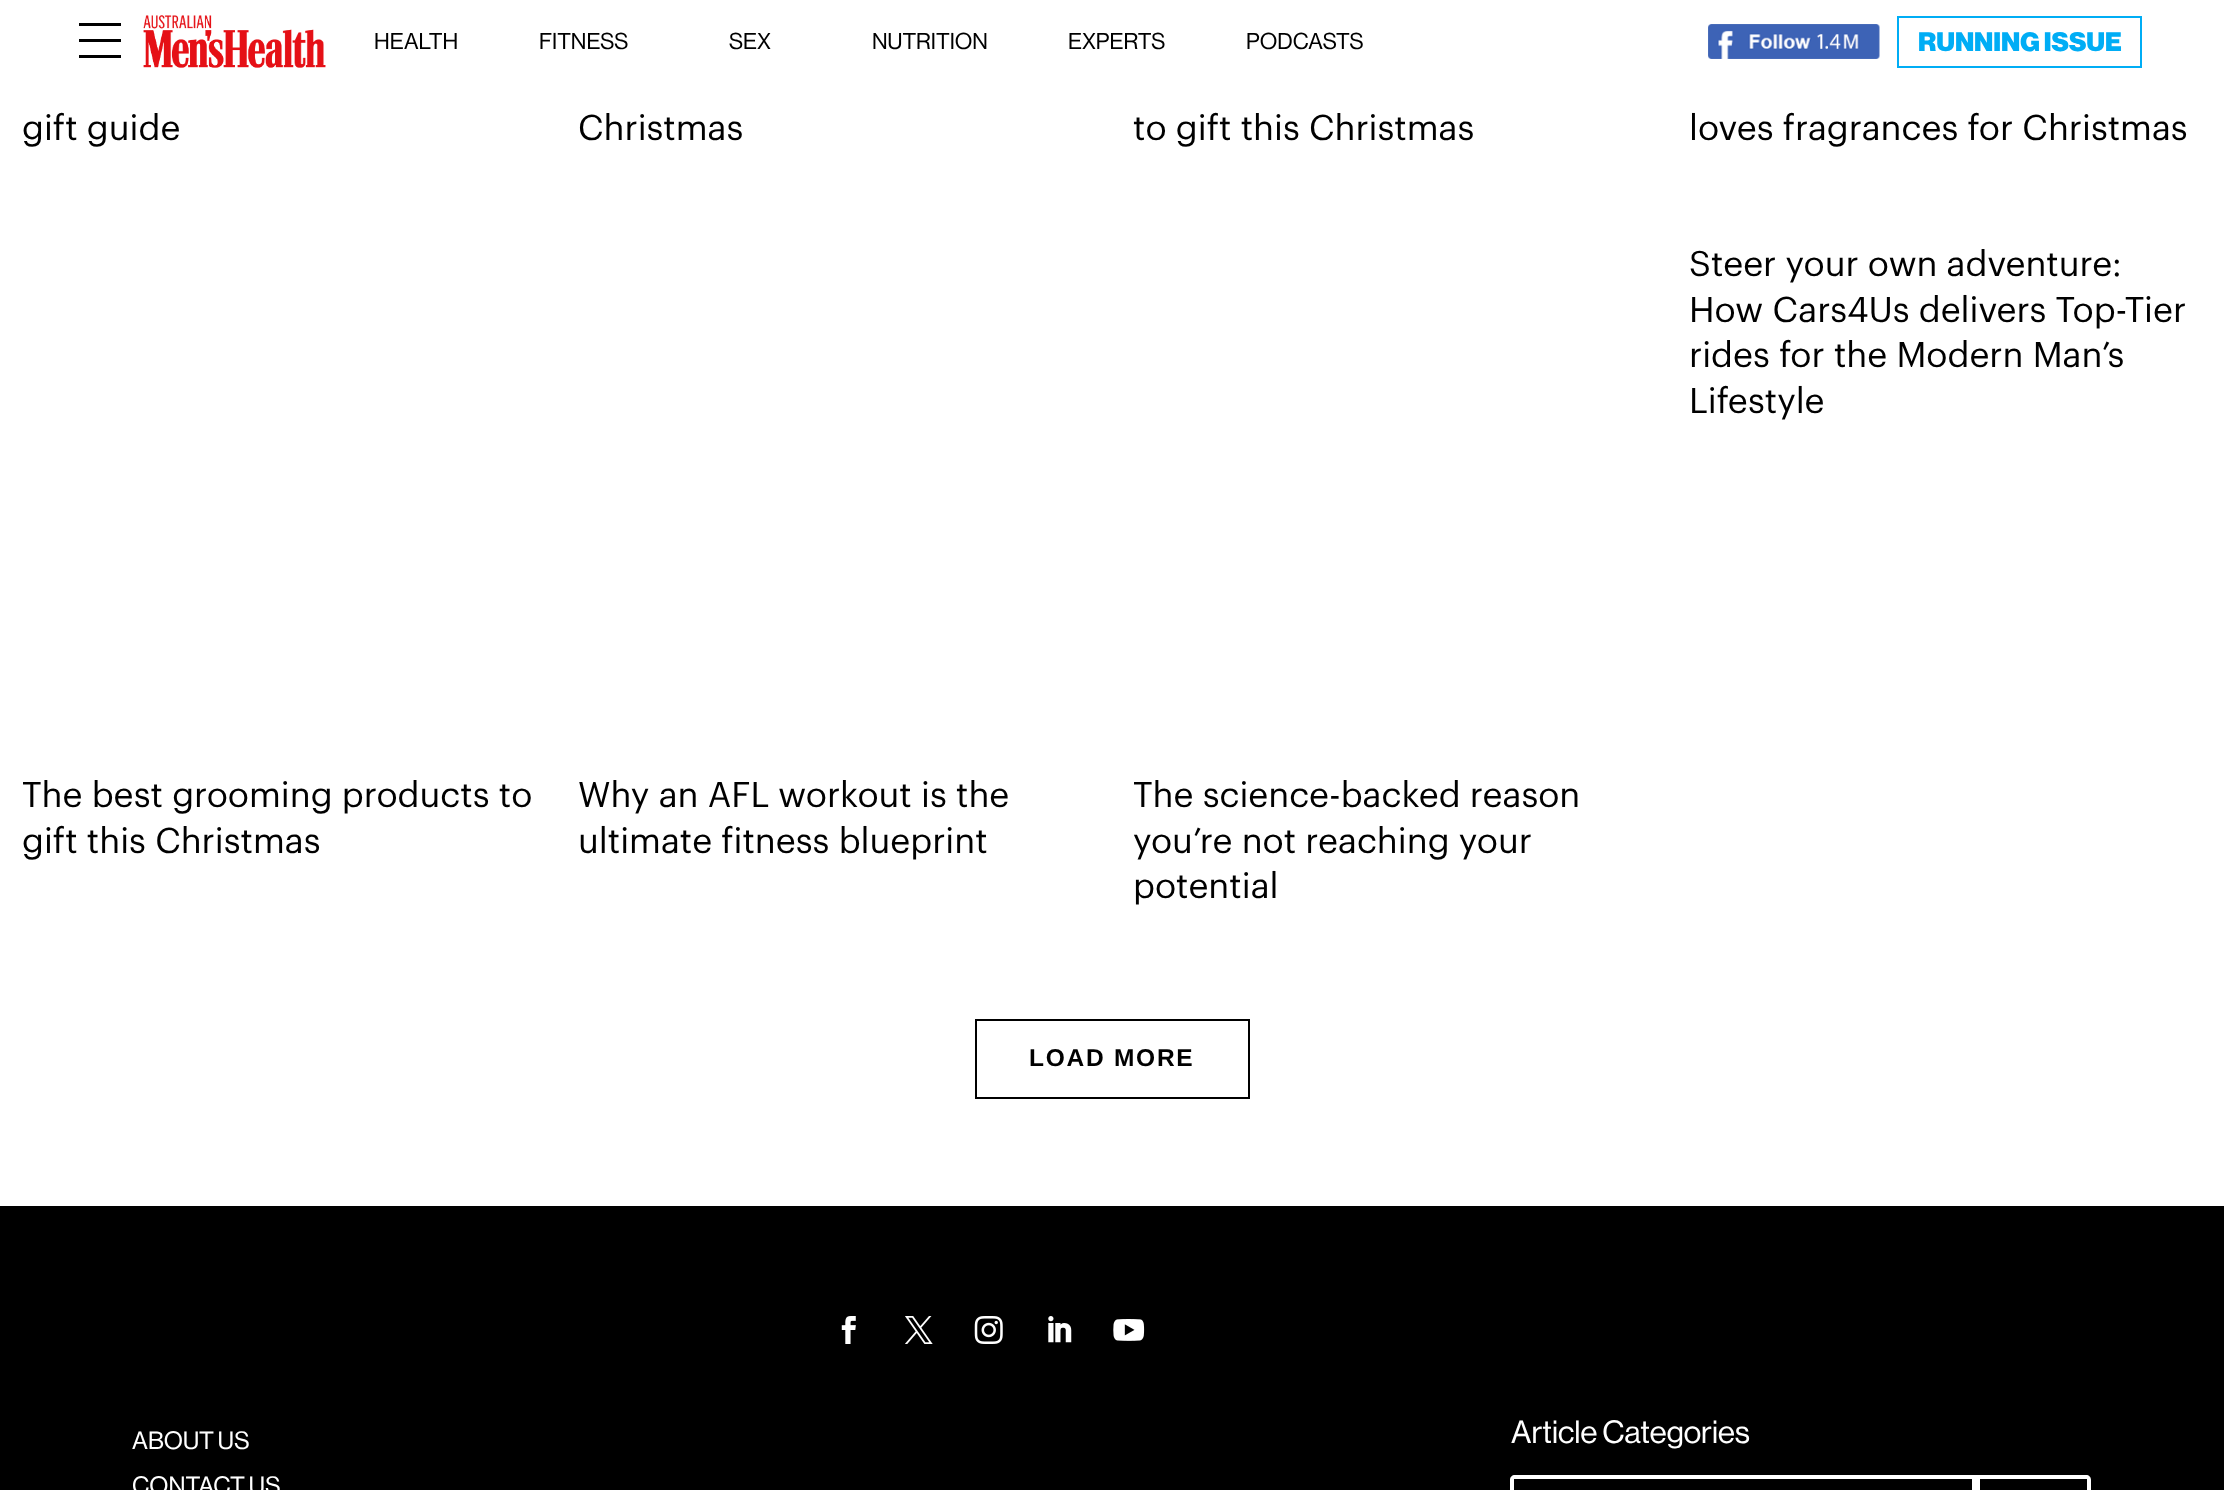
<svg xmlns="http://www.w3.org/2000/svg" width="2224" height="1490">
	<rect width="100%" height="100%" fill="#FFFFFF" />
	<path d="M121 26H79V23H121ZM121 42H79V39H121ZM121 58H79V55H121Z" fill="#000000" fill-rule="evenodd" />
	<image x="143" y="15" width="183" height="53" href="assets/img1.png" />
	<g font-family="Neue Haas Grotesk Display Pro" font-size="22.5" fill="#000000">
		<text x="374" y="49">HEALTH</text>
		<text x="539" y="49">FITNESS</text>
		<text x="729" y="49">SEX</text>
		<text x="872" y="49">NUTRITION</text>
		<text x="1068" y="49">EXPERTS</text>
		<text x="1246" y="49">PODCASTS</text>
	</g>
	<image x="1708" y="24" width="172" height="35" href="assets/img2.png" />
	<rect x="1898" y="17" width="243" height="50" fill="none" stroke="#00ADF5" stroke-width="2" />
	<text x="1918" y="51" font-family="Neue Haas Grotesk Display Pro" font-size="26.25" font-weight="900" fill="#00ADF5">RUNNING ISSUE</text>
	<g font-family="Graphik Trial" font-size="35" fill="#000000">
		<text x="22" y="140">gift guide</text>
		<text x="578" y="140">Christmas</text>
		<text x="1133" y="140">to gift this Christmas</text>
		<text x="1689" y="140">loves fragrances for Christmas</text>
		<text x="1689" y="276">Steer your own adventure</text>
	</g>
	<text x="2112" y="276" font-family="Liberation Serif" font-size="35" fill="#000000">:</text>
	<g font-family="Graphik Trial" font-size="35" fill="#000000">
		<text x="1689" y="322">How Cars4Us delivers Top-Tier</text>
		<text x="1689" y="367">rides for the Modern Man’s</text>
		<text x="1689" y="413">Lifestyle</text>
		<text x="22" y="807">The best grooming products to</text>
		<text x="22" y="853">gift this Christmas</text>
		<text x="578" y="807">Why an AFL workout is the</text>
		<text x="578" y="853">ultimate fitness blueprint</text>
		<text x="1133" y="807">The science-backed reason</text>
		<text x="1133" y="853">you’re not reaching your</text>
		<text x="1133" y="898">potential</text>
	</g>
	<rect x="976" y="1020" width="273" height="78" fill="none" stroke="#000000" stroke-width="2" />
	<text x="1029" y="1066" font-family="Liberation Sans" font-size="24.5" font-weight="700" letter-spacing="1.75" fill="#000000">LOAD MORE</text>
	<rect x="0" y="1206" width="2224" height="284" fill="#000000" />
	<image x="841" y="1316" width="15" height="28" href="assets/img3.png" />
	<image x="905" y="1316" width="28" height="28" href="assets/img4.png" />
	<image x="974" y="1316" width="29" height="28" href="assets/img5.png" />
	<image x="1048" y="1316" width="24" height="27" href="assets/img6.png" />
	<image x="1113" y="1319" width="32" height="22" href="assets/img7.png" />
	<g font-family="Neue Haas Grotesk Display Pro" font-size="24.5" fill="#FFFFFF">
		<text x="132" y="1449">ABOUT US</text>
		<text x="132" y="1494">CONTACT US</text>
	</g>
	<text x="1511" y="1443" font-family="Neue Haas Grotesk Display Pro" font-size="31.5" fill="#FFFFFF">Article Categories</text>
	<path d="M1515 1475C1512 1475 1510 1477 1510 1480V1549C1510 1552 1512 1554 1515 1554H1976V1475ZM1514 1479V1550H1972V1479Z" fill="#FFFFFF" fill-rule="evenodd" />
	<path d="M1976 1475V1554H2086C2089 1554 2091 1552 2091 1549V1480C2091 1477 2089 1475 2086 1475ZM1980 1479V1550H2087V1479Z" fill="#FFFFFF" fill-rule="evenodd" />
</svg>
